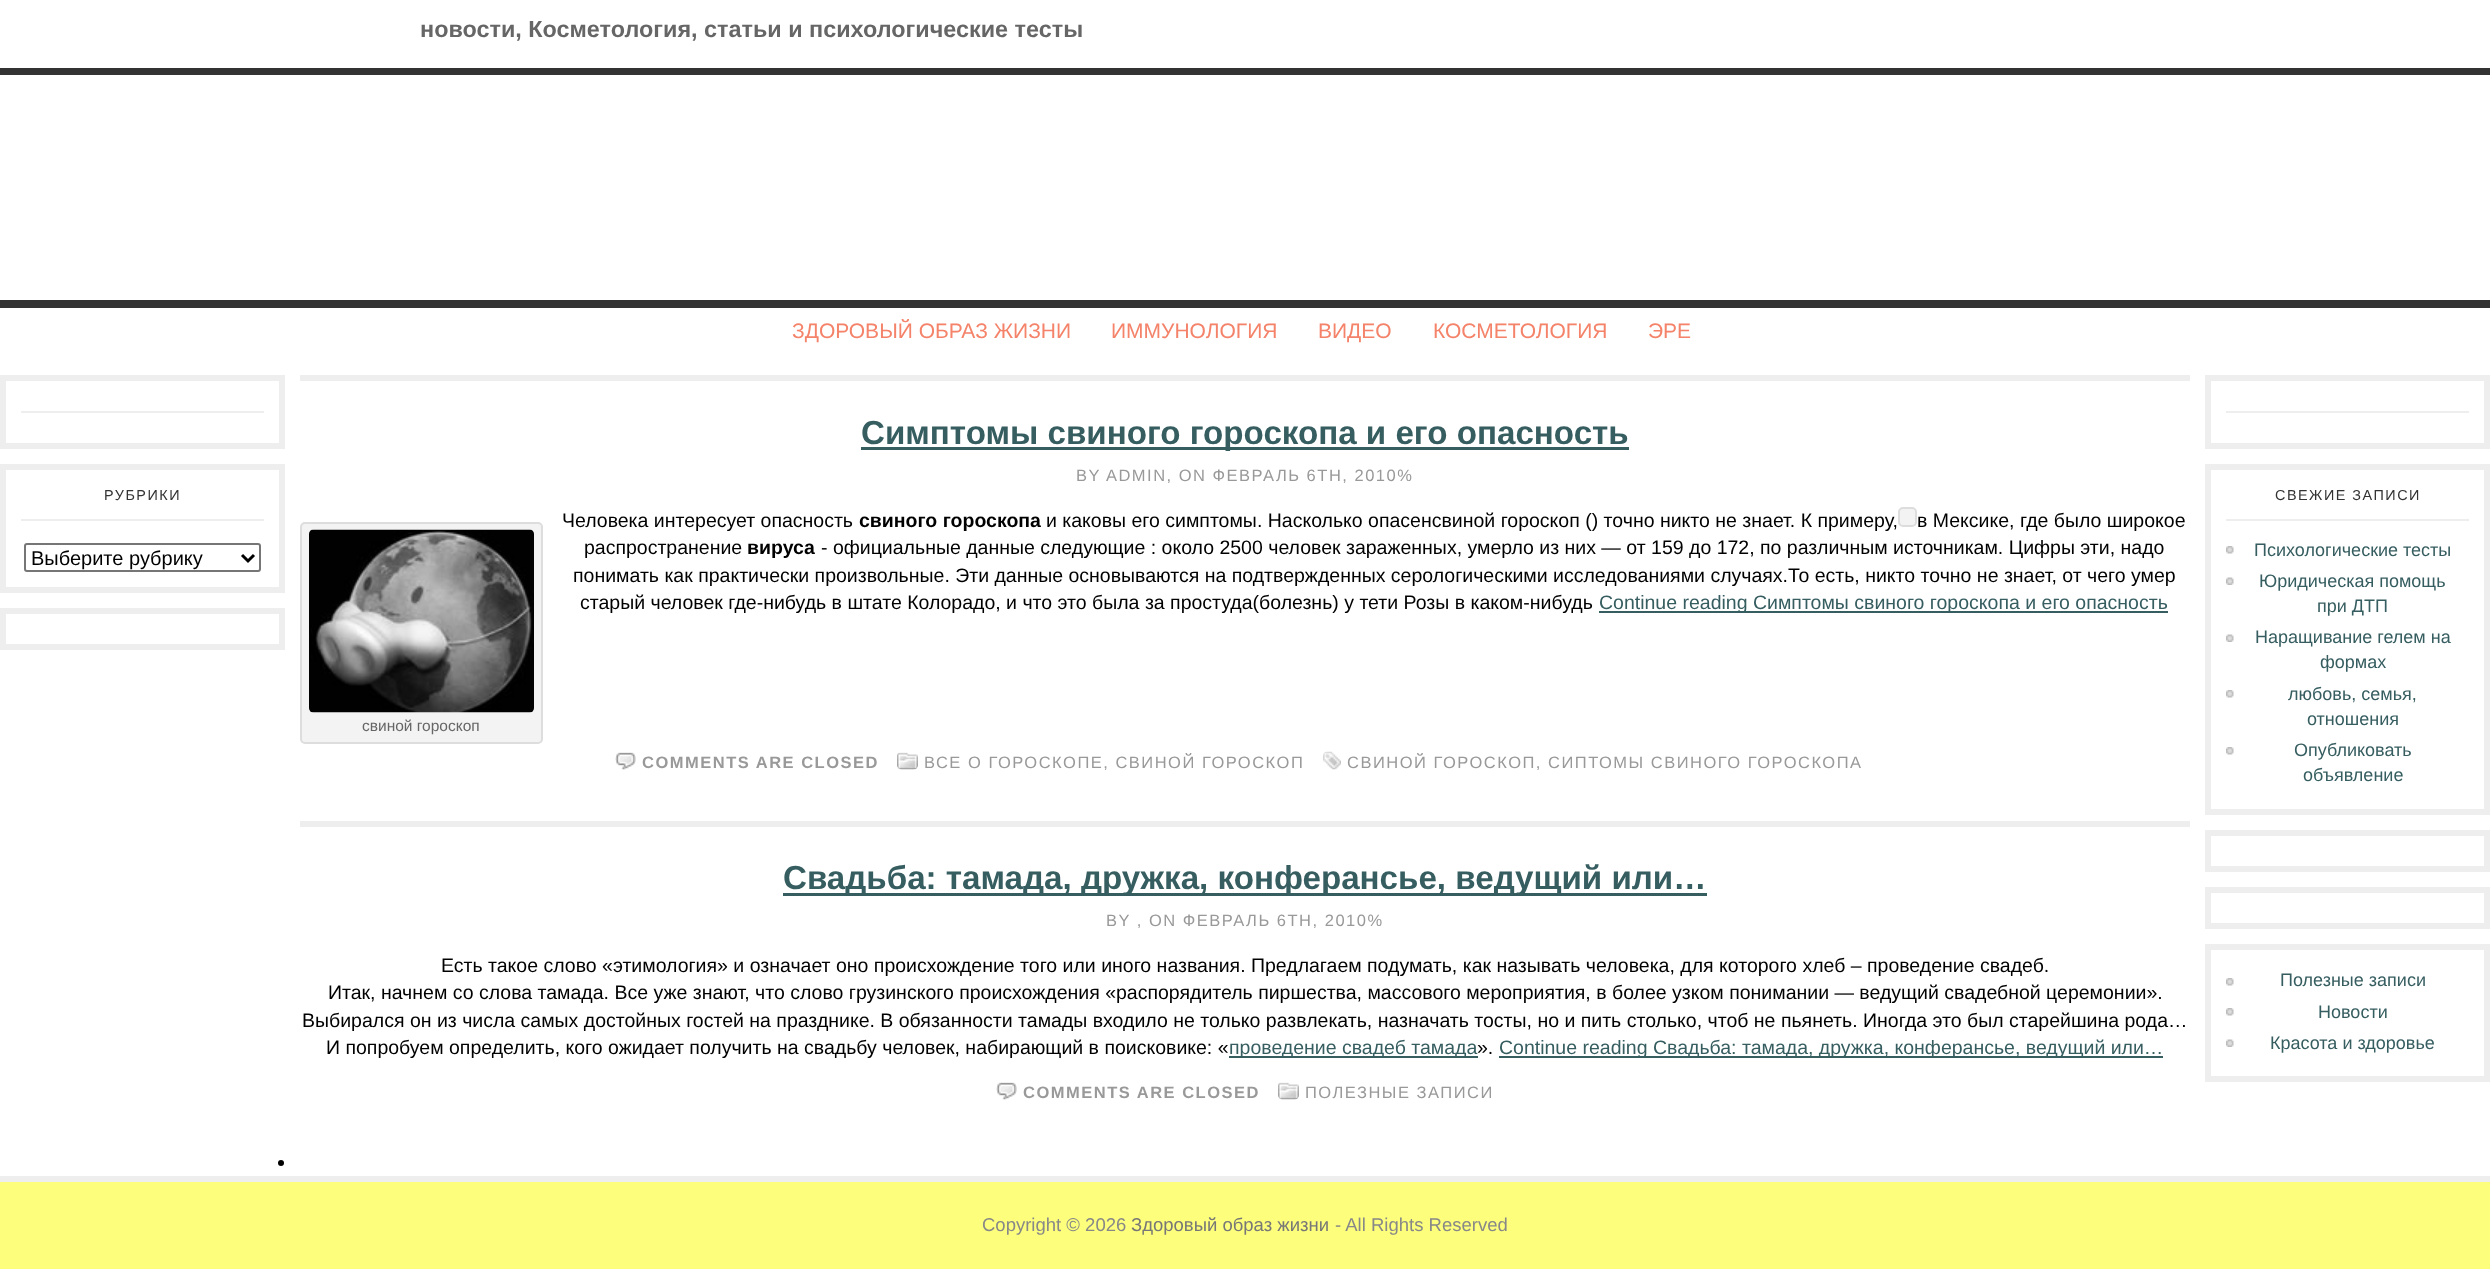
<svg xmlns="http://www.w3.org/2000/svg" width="2490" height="1274">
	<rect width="100%" height="100%" fill="#FFFFFF" />
	<text x="420" y="37" font-family="Liberation Sans" font-size="23.4" font-weight="700" fill="#666666">новости, Косметология, статьи и психологические тесты</text>
	<rect x="0" y="68" width="2490" height="7" fill="#333333" />
	<rect x="0" y="300" width="2490" height="8" fill="#333333" />
	<g font-family="Liberation Sans" font-size="21" fill="#F4836A">
		<text x="792" y="338">ЗДОРОВЫЙ ОБРАЗ ЖИЗНИ</text>
		<text x="1111" y="338">ИММУНОЛОГИЯ</text>
		<text x="1318" y="338">ВИДЕО</text>
		<text x="1433" y="338">КОСМЕТОЛОГИЯ</text>
		<text x="1648" y="338">ЭРЕ</text>
	</g>
	<rect x="3" y="378" width="279" height="68" fill="none" stroke="#EEEEEE" stroke-width="6" />
	<rect x="21" y="411" width="243" height="2" fill="#EEEEEE" />
	<rect x="3" y="467" width="279" height="123" fill="none" stroke="#EEEEEE" stroke-width="6" />
	<rect x="21" y="519" width="243" height="2" fill="#EEEEEE" />
	<text x="104" y="500" font-family="Liberation Sans" font-size="14.4" letter-spacing="1.5" fill="#333333">РУБРИКИ</text>
	<rect x="25" y="544" width="235" height="27" rx="2" fill="none" stroke="#767676" stroke-width="2" />
	<path d="M242 555L248 561L254 555" fill="none" stroke="#000000" stroke-width="3" />
	<text x="31" y="565" font-family="Liberation Sans" font-size="20" fill="#000000">Выберите рубрику</text>
	<rect x="3" y="611" width="279" height="36" fill="none" stroke="#EEEEEE" stroke-width="6" />
	<rect x="300" y="375" width="1890" height="6" fill="#EEEEEE" />
	<rect x="861" y="447" width="768" height="3" fill="#365D60" />
	<text x="861" y="444" font-family="Liberation Sans" font-size="33.15" font-weight="700" fill="#365D60">Симптомы свиного гороскопа и его опасность</text>
	<text x="1076" y="481" font-family="Liberation Sans" font-size="16.5" letter-spacing="1.5" fill="#999999">BY ADMIN, ON ФЕВРАЛЬ 6TH, 2010%</text>
	<text x="562" y="527" font-family="Liberation Sans" font-size="19.5" fill="#000000">Человека интересует опасность</text>
	<text x="859" y="527" font-family="Liberation Sans" font-size="19.5" font-weight="700" fill="#000000">свиного гороскопа</text>
	<text x="1046" y="527" font-family="Liberation Sans" font-size="19.5" fill="#000000">и каковы его симптомы. Насколько опасенсвиной гороскоп () точно никто не знает. К примеру,</text>
	<rect x="1899" y="508" width="17" height="18" rx="4" fill="#F3F3F3" stroke="#DDDDDD" stroke-width="2" />
	<g font-family="Liberation Sans" font-size="19.5" fill="#000000">
		<text x="1917" y="527">в Мексике, где было широкое</text>
		<text x="584" y="554">распространение</text>
	</g>
	<text x="747" y="554" font-family="Liberation Sans" font-size="19.5" font-weight="700" fill="#000000">вируса</text>
	<g font-family="Liberation Sans" font-size="19.5" fill="#000000">
		<text x="821" y="554">- официальные данные следующие : около 2500 человек зараженных, умерло из них — от 159 до 172, по различным источникам. Цифры эти, надо</text>
		<text x="573" y="582">понимать как практически произвольные. Эти данные основываются на подтвержденных серологическими исследованиями случаях.То есть, никто точно не знает, от чего умер</text>
		<text x="580" y="609">старый человек где-нибудь в штате Колорадо, и что это была за простуда(болезнь) у тети Розы в каком-нибудь</text>
	</g>
	<rect x="1599" y="611" width="569" height="2" fill="#365D60" />
	<text x="1599" y="609" font-family="Liberation Sans" font-size="19.5" fill="#365D60">Continue reading Симптомы свиного гороскопа и его опасность</text>
	<rect x="301" y="523" width="241" height="220" rx="4" fill="#F3F3F3" stroke="#DDDDDD" stroke-width="2" />
	<image x="309" y="529" width="225" height="184" href="assets/img1.png" />
	<text x="362" y="731" font-family="Liberation Sans" font-size="15.5" fill="#666666">свиной гороскоп</text>
	<image x="615" y="752" width="21" height="18" href="assets/img2.png" />
	<text x="642" y="768" font-family="Liberation Sans" font-size="16.5" font-weight="700" letter-spacing="1.5" fill="#999999">COMMENTS ARE CLOSED</text>
	<image x="897" y="752" width="21" height="18" href="assets/img3.png" />
	<text x="924" y="768" font-family="Liberation Sans" font-size="16.5" letter-spacing="1.5" fill="#999999">ВСЕ О ГОРОСКОПЕ, СВИНОЙ ГОРОСКОП</text>
	<image x="1323" y="751" width="18" height="19" href="assets/img4.png" />
	<text x="1347" y="768" font-family="Liberation Sans" font-size="16.5" letter-spacing="1.5" fill="#999999">СВИНОЙ ГОРОСКОП, СИПТОМЫ СВИНОГО ГОРОСКОПА</text>
	<rect x="300" y="821" width="1890" height="6" fill="#EEEEEE" />
	<rect x="783" y="893" width="924" height="3" fill="#365D60" />
	<text x="783" y="889" font-family="Liberation Sans" font-size="33.15" font-weight="700" fill="#365D60">Свадьба: тамада, дружка, конферансье, ведущий или…</text>
	<text x="1106" y="926" font-family="Liberation Sans" font-size="16.5" letter-spacing="1.5" fill="#999999">BY , ON ФЕВРАЛЬ 6TH, 2010%</text>
	<g font-family="Liberation Sans" font-size="19.5" fill="#000000">
		<text x="441" y="972">Есть такое слово «этимология» и означает оно происхождение того или иного названия. Предлагаем подумать, как называть человека, для которого хлеб – проведение свадеб.</text>
		<text x="328" y="999">Итак, начнем со слова тамада. Все уже знают, что слово грузинского происхождения «распорядитель пиршества, массового мероприятия, в более узком понимании — ведущий свадебной церемонии».</text>
		<text x="302" y="1027">Выбирался он из числа самых достойных гостей на празднике. В обязанности тамады входило не только развлекать, назначать тосты, но и пить столько, чтоб не пьянеть. Иногда это был старейшина рода…</text>
		<text x="326" y="1054">И попробуем определить, кого ожидает получить на свадьбу человек, набирающий в поисковике: «</text>
	</g>
	<rect x="1229" y="1056" width="249" height="2" fill="#365D60" />
	<text x="1229" y="1054" font-family="Liberation Sans" font-size="19.5" fill="#365D60">проведение свадеб тамада</text>
	<text x="1477" y="1054" font-family="Liberation Sans" font-size="19.5" fill="#000000">».</text>
	<rect x="1499" y="1056" width="664" height="2" fill="#365D60" />
	<text x="1499" y="1054" font-family="Liberation Sans" font-size="19.5" fill="#365D60">Continue reading Свадьба: тамада, дружка, конферансье, ведущий или…</text>
	<image x="996" y="1082" width="21" height="18" href="assets/img5.png" />
	<text x="1023" y="1098" font-family="Liberation Sans" font-size="16.5" font-weight="700" letter-spacing="1.5" fill="#999999">COMMENTS ARE CLOSED</text>
	<image x="1278" y="1082" width="21" height="18" href="assets/img3.png" />
	<text x="1305" y="1098" font-family="Liberation Sans" font-size="16.5" letter-spacing="1.5" fill="#999999">ПОЛЕЗНЫЕ ЗАПИСИ</text>
	<circle cx="281" cy="1163" r="3" fill="#000000" />
	<rect x="2208" y="378" width="279" height="68" fill="none" stroke="#EEEEEE" stroke-width="6" />
	<rect x="2226" y="411" width="243" height="2" fill="#EEEEEE" />
	<rect x="2208" y="467" width="279" height="345" fill="none" stroke="#EEEEEE" stroke-width="6" />
	<rect x="2226" y="519" width="243" height="2" fill="#EEEEEE" />
	<text x="2275" y="500" font-family="Liberation Sans" font-size="14.4" letter-spacing="1.5" fill="#333333">СВЕЖИЕ ЗАПИСИ</text>
	<image x="2226" y="546" width="8" height="8" href="assets/img6.png" />
	<text x="2254" y="556" font-family="Liberation Sans" font-size="18" fill="#365D60">Психологические тесты</text>
	<image x="2226" y="577" width="8" height="8" href="assets/img7.png" />
	<g font-family="Liberation Sans" font-size="18" fill="#365D60">
		<text x="2259" y="587">Юридическая помощь</text>
		<text x="2317" y="612">при ДТП</text>
	</g>
	<image x="2226" y="634" width="8" height="8" href="assets/img7.png" />
	<g font-family="Liberation Sans" font-size="18" fill="#365D60">
		<text x="2255" y="643">Наращивание гелем на</text>
		<text x="2320" y="668">формах</text>
	</g>
	<image x="2226" y="690" width="8" height="8" href="assets/img6.png" />
	<g font-family="Liberation Sans" font-size="18" fill="#365D60">
		<text x="2288" y="700">любовь, семья,</text>
		<text x="2307" y="725">отношения</text>
	</g>
	<image x="2226" y="747" width="8" height="8" href="assets/img6.png" />
	<g font-family="Liberation Sans" font-size="18" fill="#365D60">
		<text x="2294" y="756">Опубликовать</text>
		<text x="2303" y="781">объявление</text>
	</g>
	<rect x="2208" y="833" width="279" height="36" fill="none" stroke="#EEEEEE" stroke-width="6" />
	<rect x="2208" y="890" width="279" height="36" fill="none" stroke="#EEEEEE" stroke-width="6" />
	<rect x="2208" y="947" width="279" height="132" fill="none" stroke="#EEEEEE" stroke-width="6" />
	<image x="2226" y="978" width="8" height="8" href="assets/img6.png" />
	<text x="2280" y="986" font-family="Liberation Sans" font-size="18" fill="#365D60">Полезные записи</text>
	<image x="2226" y="1008" width="8" height="8" href="assets/img6.png" />
	<text x="2318" y="1018" font-family="Liberation Sans" font-size="18" fill="#365D60">Новости</text>
	<image x="2226" y="1039" width="8" height="8" href="assets/img7.png" />
	<text x="2270" y="1049" font-family="Liberation Sans" font-size="18" fill="#365D60">Красота и здоровье</text>
	<rect x="0" y="1182" width="2490" height="87" fill="#FDFF7C" />
	<rect x="0" y="1176" width="2490" height="6" fill="#EEEEEE" />
	<text x="982" y="1231" font-family="Liberation Sans" font-size="18.5" fill="#888888">Copyright © 2026</text>
	<text x="1131" y="1231" font-family="Liberation Sans" font-size="18.5" fill="#777777">Здоровый образ жизни</text>
	<text x="1335" y="1231" font-family="Liberation Sans" font-size="18.5" fill="#888888">- All Rights Reserved</text>
</svg>
